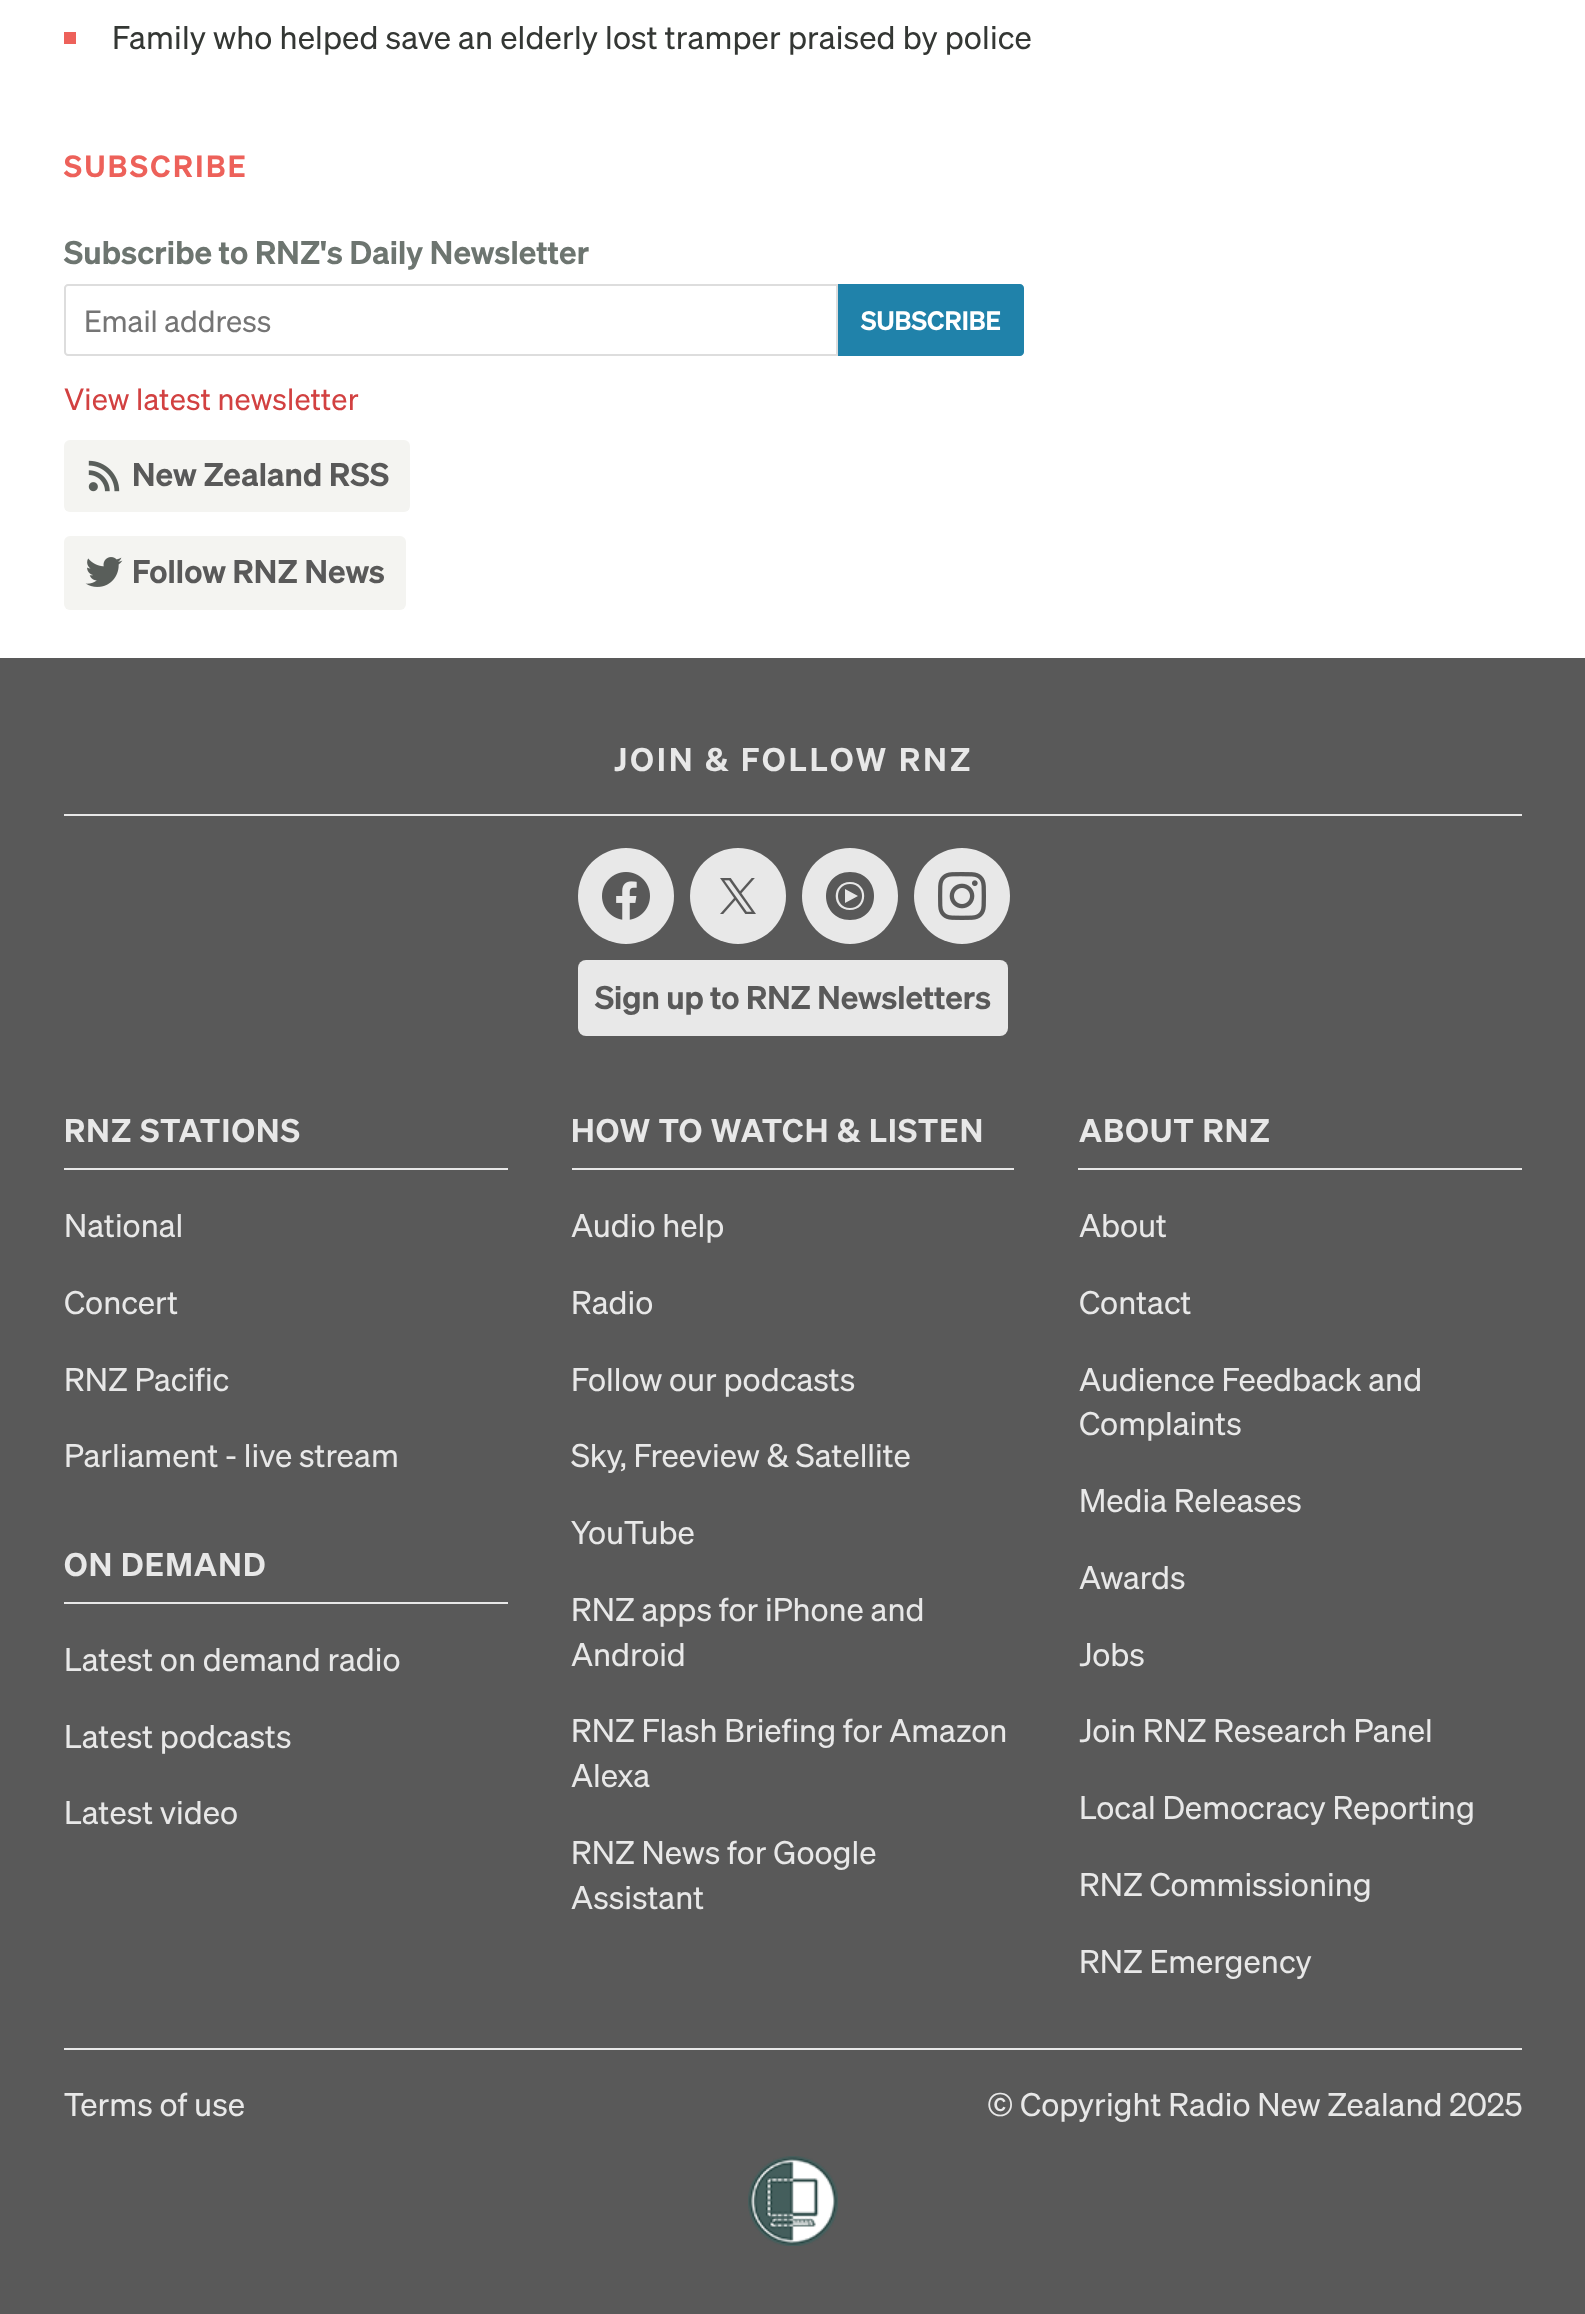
<svg xmlns="http://www.w3.org/2000/svg" width="1585" height="2314">
	<rect width="100%" height="100%" fill="#FFFFFF" />
	<rect x="64" y="32" width="12" height="12" fill="#ED615A" />
	<text x="112" y="49" font-family="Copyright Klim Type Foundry" font-size="32" letter-spacing="0.15" fill="#343734">Family who helped save an elderly lost tramper praised by police</text>
	<text x="64" y="177" font-family="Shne" font-size="30" font-weight="600" letter-spacing="2.5" fill="#ED615A">SUBSCRIBE</text>
	<text x="64" y="264" font-family="Shne" font-size="32" font-weight="600" letter-spacing="0.15" fill="#6D7570">Subscribe to RNZ's Daily Newsletter</text>
	<path d="M68 285H837V355H68C66.5 355 65 353.5 65 352V288C65 286.5 66.5 285 68 285Z" fill="none" stroke="#DDDDDD" stroke-width="2" />
	<text x="84" y="332" font-family="Copyright Klim Type Foundry" font-size="30" fill="#757575">Email address</text>
	<path d="M839 285H1020C1021.5 285 1023 286.5 1023 288V352C1023 353.5 1021.5 355 1020 355H839Z" fill="#2082AA" stroke="#2082AA" stroke-width="2" />
	<text x="861" y="330" font-family="Shne" font-size="26" font-weight="600" fill="#FFFFFF">SUBSCRIBE</text>
	<text x="64" y="410" font-family="Copyright Klim Type Foundry" font-size="30" letter-spacing="0.15" fill="#D24141">View latest newsletter</text>
	<rect x="64" y="440" width="346" height="72" rx="6" fill="#F4F4F1" />
	<image x="88" y="460" width="32" height="32" href="assets/img1.png" />
	<text x="132" y="486" font-family="Shne" font-size="32" font-weight="600" letter-spacing="0.15" fill="#595959">New Zealand RSS</text>
	<rect x="64" y="536" width="342" height="74" rx="6" fill="#F4F4F1" />
	<image x="85" y="557" width="38" height="30" href="assets/img2.png" />
	<text x="132" y="583" font-family="Shne" font-size="32" font-weight="600" letter-spacing="0.15" fill="#595959">Follow RNZ News</text>
	<rect x="0" y="658" width="1585" height="1656" fill="#595959" />
	<rect x="64" y="814" width="1458" height="2" fill="#E8E8E8" />
	<text x="614" y="771" font-family="Shne" font-size="32" font-weight="600" letter-spacing="3.25" fill="#E8E8E8">JOIN &amp; FOLLOW RNZ</text>
	<circle cx="626" cy="896" r="48" fill="#E8E8E8" />
	<image x="602" y="872" width="48" height="48" href="assets/img3.png" />
	<circle cx="738" cy="896" r="48" fill="#E8E8E8" />
	<image x="720" y="878" width="36" height="36" href="assets/img4.png" />
	<circle cx="850" cy="896" r="48" fill="#E8E8E8" />
	<path d="M850 872C818 872 818 920 850 920C882 920 882 872 850 872ZM850 910C831 910 831 882 850 882C869 882 869 910 850 910ZM850 884C834 884 834 908 850 908C866 908 866 884 850 884ZM845 903V889L858 896Z" fill="#595959" />
	<circle cx="962" cy="896" r="48" fill="#E8E8E8" />
	<image x="938" y="872" width="48" height="48" href="assets/img5.png" />
	<rect x="578" y="960" width="430" height="76" rx="8" fill="#E8E8E8" />
	<text x="595" y="1009" font-family="Shne" font-size="32" font-weight="600" fill="#595959">Sign up to RNZ Newsletters</text>
	<rect x="64" y="1168" width="444" height="2" fill="#E8E8E8" />
	<text x="64" y="1142" font-family="Shne" font-size="32" font-weight="600" letter-spacing="1.25" fill="#E8E8E8">RNZ STATIONS</text>
	<g font-family="Copyright Klim Type Foundry" font-size="32" fill="#E8E8E8">
		<text x="64" y="1237">National</text>
		<text x="64" y="1314">Concert</text>
		<text x="64" y="1391">RNZ Pacific</text>
		<text x="64" y="1467">Parliament - live stream</text>
	</g>
	<rect x="64" y="1602" width="444" height="2" fill="#E8E8E8" />
	<text x="64" y="1576" font-family="Shne" font-size="32" font-weight="600" letter-spacing="1.25" fill="#E8E8E8">ON DEMAND</text>
	<g font-family="Copyright Klim Type Foundry" font-size="32" fill="#E8E8E8">
		<text x="64" y="1671">Latest on demand radio</text>
		<text x="64" y="1748">Latest podcasts</text>
		<text x="64" y="1824">Latest video</text>
	</g>
	<rect x="572" y="1168" width="442" height="2" fill="#E8E8E8" />
	<text x="571" y="1142" font-family="Shne" font-size="32" font-weight="600" letter-spacing="1.25" fill="#E8E8E8">HOW TO WATCH &amp; LISTEN</text>
	<g font-family="Copyright Klim Type Foundry" font-size="32" fill="#E8E8E8">
		<text x="571" y="1237">Audio help</text>
		<text x="571" y="1314">Radio</text>
		<text x="571" y="1391">Follow our podcasts</text>
		<text x="571" y="1467">Sky, Freeview &amp; Satellite</text>
		<text x="571" y="1544">YouTube</text>
		<text x="571" y="1621">RNZ apps for iPhone and</text>
		<text x="571" y="1666">Android</text>
		<text x="571" y="1742">RNZ Flash Briefing for Amazon</text>
		<text x="571" y="1787">Alexa</text>
		<text x="571" y="1864">RNZ News for Google</text>
		<text x="571" y="1909">Assistant</text>
	</g>
	<rect x="1078" y="1168" width="444" height="2" fill="#E8E8E8" />
	<text x="1079" y="1142" font-family="Shne" font-size="32" font-weight="600" letter-spacing="1.25" fill="#E8E8E8">ABOUT RNZ</text>
	<g font-family="Copyright Klim Type Foundry" font-size="32" fill="#E8E8E8">
		<text x="1079" y="1237">About</text>
		<text x="1079" y="1314">Contact</text>
		<text x="1079" y="1391">Audience Feedback and</text>
		<text x="1079" y="1435">Complaints</text>
		<text x="1079" y="1512">Media Releases</text>
		<text x="1079" y="1589">Awards</text>
		<text x="1079" y="1666">Jobs</text>
		<text x="1079" y="1742">Join RNZ Research Panel</text>
		<text x="1079" y="1819">Local Democracy Reporting</text>
		<text x="1079" y="1896">RNZ Commissioning</text>
		<text x="1079" y="1973">RNZ Emergency</text>
	</g>
	<rect x="64" y="2048" width="1458" height="2" fill="#E8E8E8" />
	<g font-family="Copyright Klim Type Foundry" font-size="32" fill="#E8E8E8">
		<text x="64" y="2116">Terms of use</text>
		<text x="987" y="2116">© Copyright Radio New Zealand 2025</text>
	</g>
	<image x="748" y="2156" width="90" height="90" href="assets/img6.png" />
</svg>
